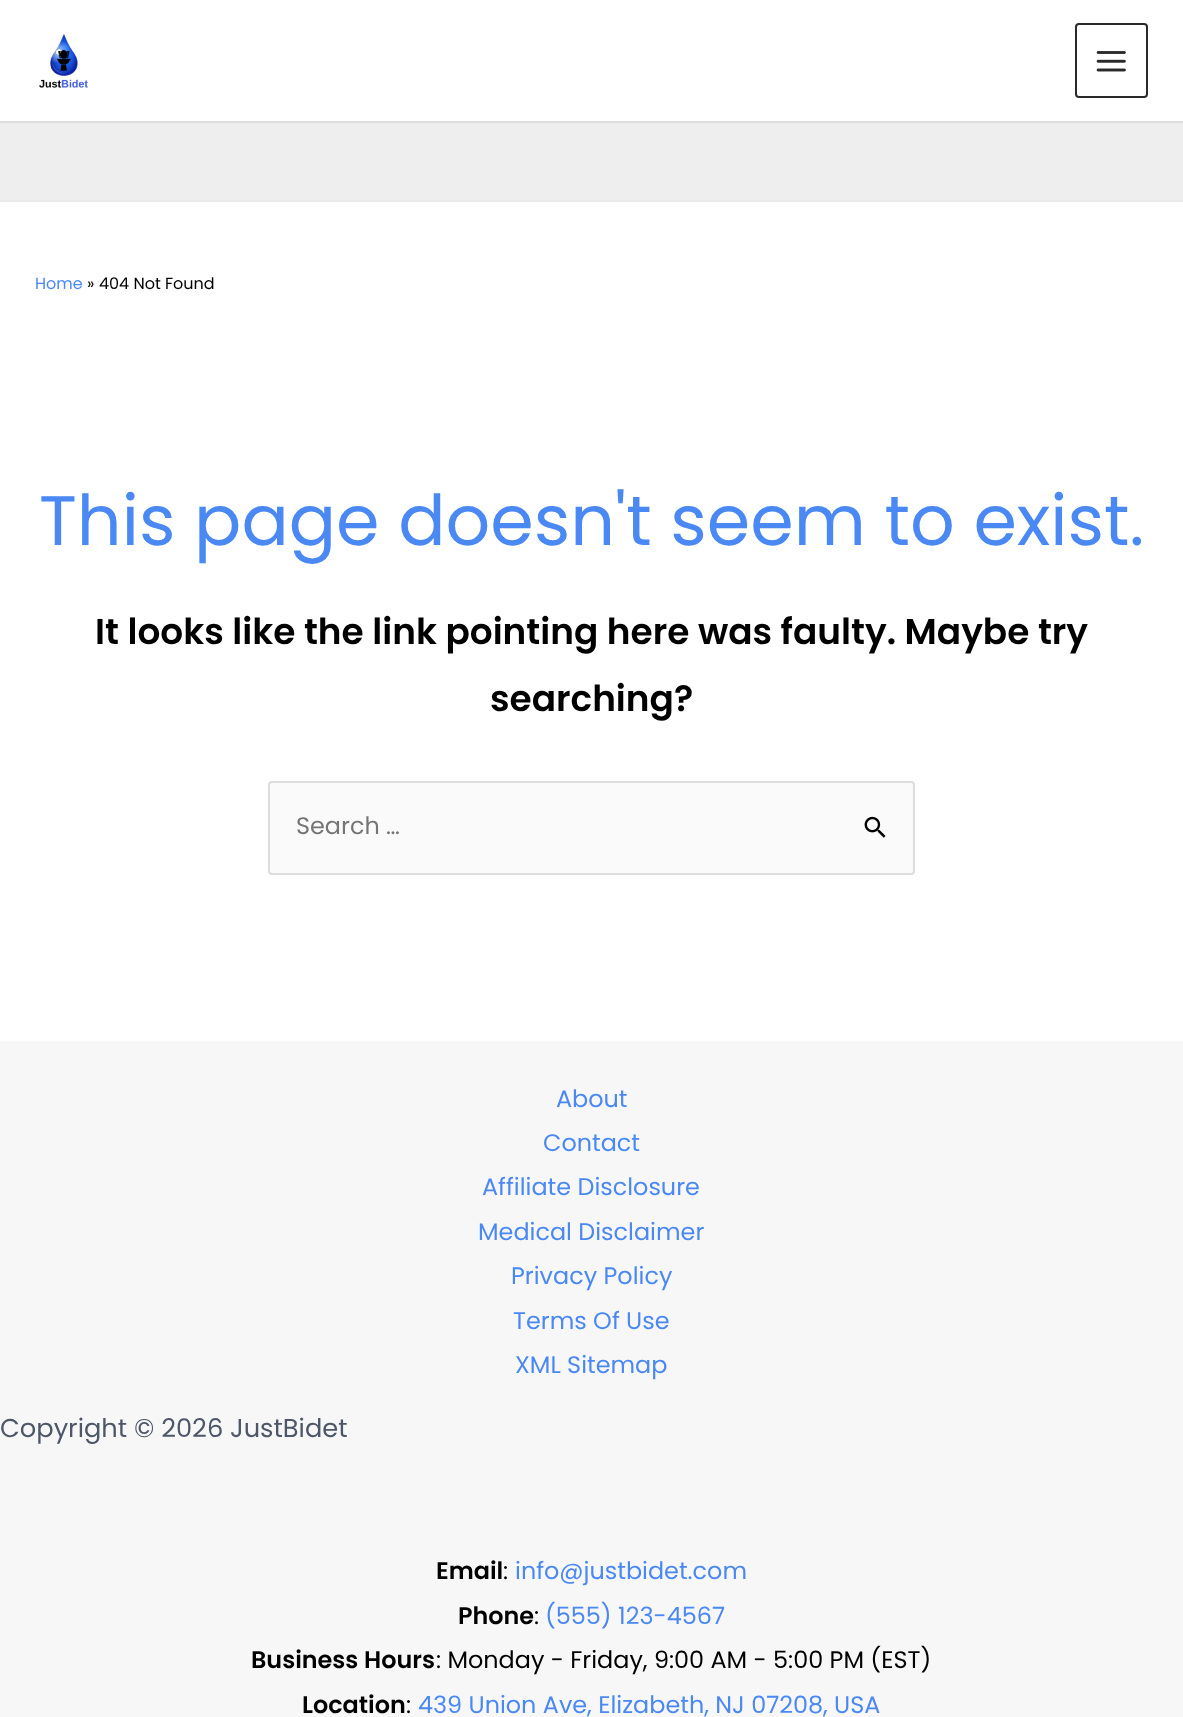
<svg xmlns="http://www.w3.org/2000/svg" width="1183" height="1717">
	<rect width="100%" height="100%" fill="#FFFFFF" />
	<rect x="0" y="121" width="1183" height="2" fill="#DDDDDD" />
	<image x="39" y="34" width="49" height="54" href="assets/img1.png" />
	<rect x="1076" y="24" width="71" height="73" rx="3" fill="none" stroke="#2A2A2A" stroke-width="2" />
	<image x="1096" y="51" width="30" height="21" href="assets/img2.png" />
	<rect x="0" y="123" width="1183" height="77" fill="#EEEEEE" />
	<rect x="0" y="200" width="1183" height="2" fill="#EAEAEA" />
	<text x="35" y="289" font-family="Poppins" font-size="16" fill="#4A88F4">Home</text>
	<g font-family="Poppins" font-size="16" fill="#000000">
		<text x="87" y="289">»</text>
		<text x="99" y="289">404 Not Found</text>
	</g>
	<text x="39" y="545" font-family="Poppins" font-size="70" fill="#4A88F4">This page doesn't seem to exist.</text>
	<g font-family="Poppins" font-size="35.9" font-weight="600" fill="#000000">
		<text x="95" y="644">It looks like the link pointing here was faulty. Maybe try</text>
		<text x="490" y="711">searching?</text>
	</g>
	<rect x="269" y="782" width="645" height="92" rx="3" fill="#FAFAFA" stroke="#DDDDDD" stroke-width="2" />
	<text x="296" y="834" font-family="Poppins" font-size="23.9" fill="#757575">Search …</text>
	<image x="864" y="816" width="22" height="22" href="assets/img3.png" />
	<rect x="0" y="1041" width="1183" height="676" fill="#F7F7F8" />
	<g font-family="Poppins" font-size="23.9" fill="#4A88F4">
		<text x="556" y="1107">About</text>
		<text x="543" y="1151">Contact</text>
		<text x="482" y="1195">Affiliate Disclosure</text>
		<text x="478" y="1240">Medical Disclaimer</text>
		<text x="511" y="1284">Privacy Policy</text>
		<text x="513" y="1329">Terms Of Use</text>
		<text x="515" y="1373">XML Sitemap</text>
	</g>
	<text x="0" y="1437" font-family="Poppins" font-size="25.7" fill="#4E5768">Copyright © 2026 JustBidet</text>
	<text x="436" y="1579" font-family="Poppins" font-size="23.9" font-weight="600" fill="#000000">Email</text>
	<text x="503" y="1579" font-family="Poppins" font-size="23.9" fill="#000000">:</text>
	<text x="515" y="1579" font-family="Poppins" font-size="23.9" fill="#4A88F4">info@justbidet.com</text>
	<text x="458" y="1624" font-family="Poppins" font-size="23.9" font-weight="600" fill="#000000">Phone</text>
	<text x="534" y="1624" font-family="Poppins" font-size="23.9" fill="#000000">:</text>
	<text x="545" y="1624" font-family="Poppins" font-size="23.9" fill="#4A88F4">(555) 123-4567</text>
	<text x="251" y="1668" font-family="Poppins" font-size="23.9" font-weight="600" fill="#000000">Business Hours</text>
	<text x="436" y="1668" font-family="Poppins" font-size="23.9" fill="#000000">: Monday - Friday, 9:00 AM - 5:00 PM (EST)</text>
	<text x="302" y="1713" font-family="Poppins" font-size="23.9" font-weight="600" fill="#000000">Location</text>
	<text x="406" y="1713" font-family="Poppins" font-size="23.9" fill="#000000">:</text>
	<text x="418" y="1713" font-family="Poppins" font-size="23.9" fill="#4A88F4">439 Union Ave, Elizabeth, NJ 07208, USA</text>
</svg>
